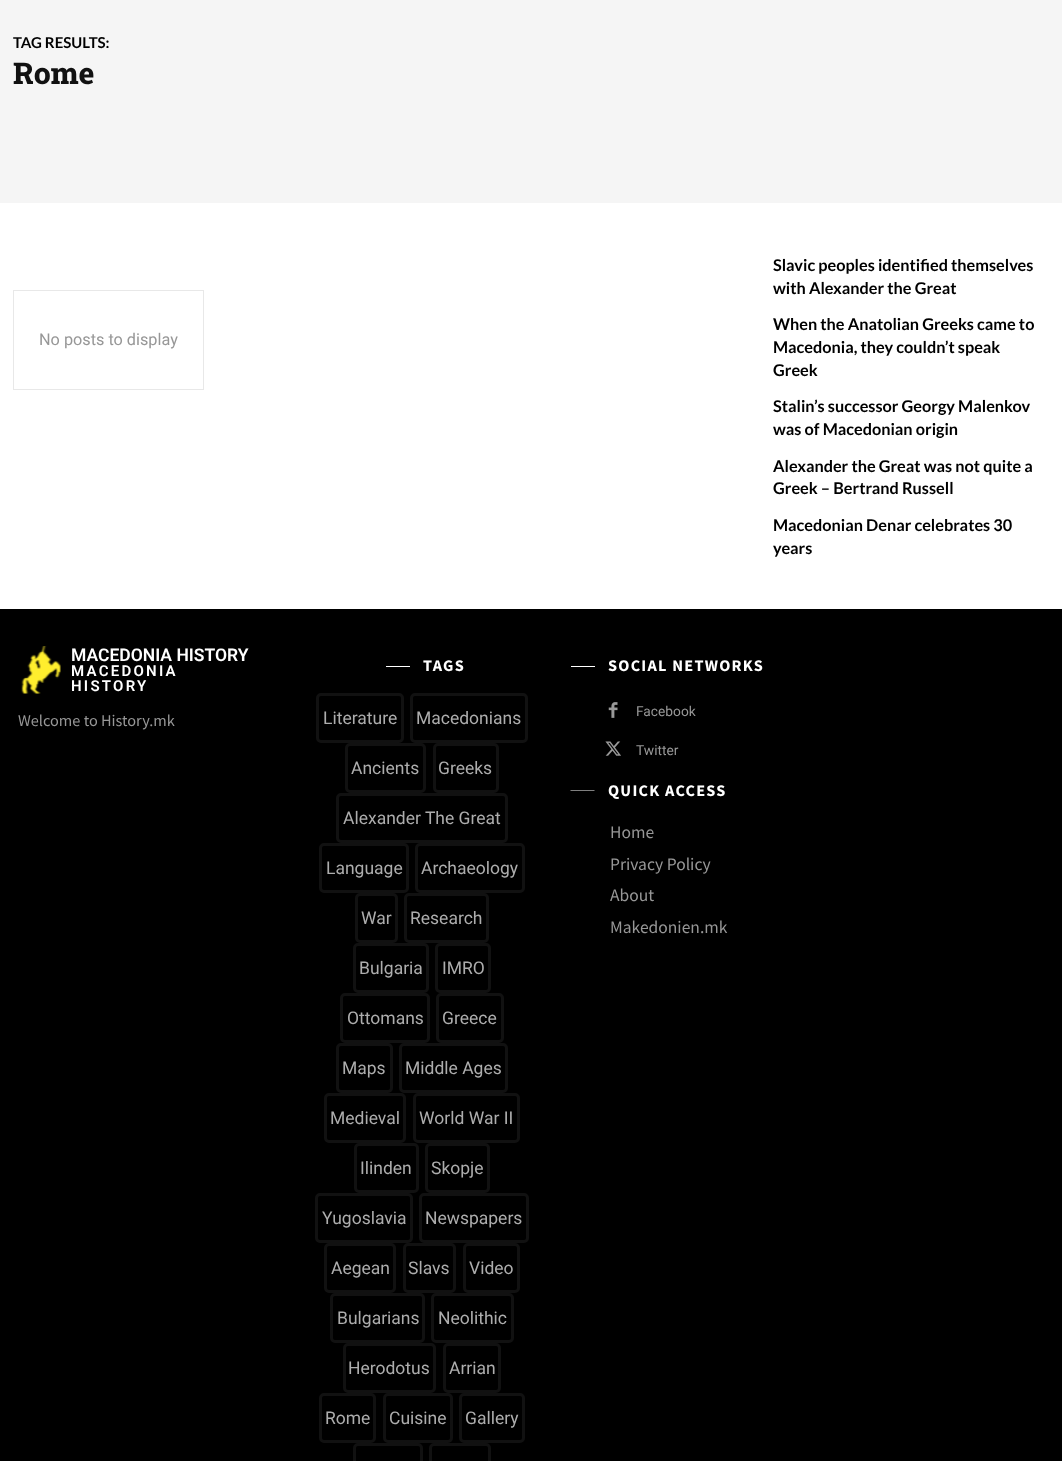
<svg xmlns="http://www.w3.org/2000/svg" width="1062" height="1461">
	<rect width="100%" height="100%" fill="#FFFFFF" />
	<rect x="0" y="0" width="1062" height="203" fill="#F5F5F5" />
	<text x="13" y="48" font-family="Lato" font-size="15" font-weight="700" fill="#000000">TAG RESULTS:</text>
	<text x="13" y="84" font-family="Roboto Slab" font-size="30" font-weight="800" fill="#111111">Rome</text>
	<rect x="13.5" y="290.5" width="190" height="99" fill="none" stroke="#E8E8E8" />
	<text x="39" y="345" font-family="Roboto" font-size="16.25" fill="#979797">No posts to display</text>
	<g font-family="Lato" font-size="16.25" font-weight="700" fill="#000000">
		<text x="773" y="271">Slavic peoples identified themselves</text>
		<text x="773" y="294">with Alexander the Great</text>
		<text x="773" y="330">When the Anatolian Greeks came to</text>
		<text x="773" y="353">Macedonia, they couldn’t speak</text>
		<text x="773" y="376">Greek</text>
		<text x="773" y="412">Stalin’s successor Georgy Malenkov</text>
		<text x="773" y="435">was of Macedonian origin</text>
		<text x="773" y="472">Alexander the Great was not quite a</text>
		<text x="773" y="494">Greek – Bertrand Russell</text>
		<text x="773" y="531">Macedonian Denar celebrates 30</text>
		<text x="773" y="554">years</text>
	</g>
	<rect x="0" y="609" width="1062" height="852" fill="#000000" />
	<image x="21" y="646" width="40" height="48" href="assets/img1.png" />
	<text x="71" y="661" font-family="Roboto" font-size="17.5" font-weight="600" fill="#FFFFFF">MACEDONIA HISTORY</text>
	<g font-family="Roboto" font-size="15" font-weight="600" letter-spacing="2.25" fill="#FFFFFF">
		<text x="71" y="676">MACEDONIA</text>
		<text x="71" y="691">HISTORY</text>
	</g>
	<text x="18" y="726" font-family="Source Sans Pro" font-size="16.25" fill="#979797">Welcome to History.mk</text>
	<rect x="386" y="666" width="24" height="1" fill="#FFFFFF" />
	<text x="423" y="671" font-family="Source Sans Pro" font-size="16.25" font-weight="700" letter-spacing="1.25" fill="#FFFFFF">TAGS</text>
	<rect x="317.5" y="694.5" width="85" height="47" rx="3.5" fill="none" stroke="#111111" stroke-width="3" />
	<text x="323" y="724" font-family="Roboto" font-size="17.5" fill="#ADADAD">Literature</text>
	<rect x="411.5" y="694.5" width="115" height="47" rx="3.5" fill="none" stroke="#111111" stroke-width="3" />
	<text x="416" y="724" font-family="Roboto" font-size="17.5" fill="#ADADAD">Macedonians</text>
	<rect x="346.5" y="744.5" width="78" height="47" rx="3.5" fill="none" stroke="#111111" stroke-width="3" />
	<text x="351" y="774" font-family="Roboto" font-size="17.5" fill="#ADADAD">Ancients</text>
	<rect x="434.5" y="744.5" width="63" height="47" rx="3.5" fill="none" stroke="#111111" stroke-width="3" />
	<text x="438" y="774" font-family="Roboto" font-size="17.5" fill="#ADADAD">Greeks</text>
	<rect x="337.5" y="794.5" width="169" height="47" rx="3.5" fill="none" stroke="#111111" stroke-width="3" />
	<text x="343" y="824" font-family="Roboto" font-size="17.5" fill="#ADADAD">Alexander The Great</text>
	<rect x="320.5" y="844.5" width="87" height="47" rx="3.5" fill="none" stroke="#111111" stroke-width="3" />
	<text x="326" y="874" font-family="Roboto" font-size="17.5" fill="#ADADAD">Language</text>
	<rect x="416.5" y="844.5" width="107" height="47" rx="3.5" fill="none" stroke="#111111" stroke-width="3" />
	<text x="421" y="874" font-family="Roboto" font-size="17.5" fill="#ADADAD">Archaeology</text>
	<rect x="356.5" y="894.5" width="40" height="47" rx="3.5" fill="none" stroke="#111111" stroke-width="3" />
	<text x="361" y="924" font-family="Roboto" font-size="17.5" fill="#ADADAD">War</text>
	<rect x="405.5" y="894.5" width="82" height="47" rx="3.5" fill="none" stroke="#111111" stroke-width="3" />
	<text x="410" y="924" font-family="Roboto" font-size="17.5" fill="#ADADAD">Research</text>
	<rect x="354.5" y="944.5" width="73" height="47" rx="3.5" fill="none" stroke="#111111" stroke-width="3" />
	<text x="359" y="974" font-family="Roboto" font-size="17.5" fill="#ADADAD">Bulgaria</text>
	<rect x="436.5" y="944.5" width="53" height="47" rx="3.5" fill="none" stroke="#111111" stroke-width="3" />
	<text x="442" y="974" font-family="Roboto" font-size="17.5" fill="#ADADAD">IMRO</text>
	<rect x="341.5" y="994.5" width="87" height="47" rx="3.5" fill="none" stroke="#111111" stroke-width="3" />
	<text x="347" y="1024" font-family="Roboto" font-size="17.5" fill="#ADADAD">Ottomans</text>
	<rect x="437.5" y="994.5" width="65" height="47" rx="3.5" fill="none" stroke="#111111" stroke-width="3" />
	<text x="442" y="1024" font-family="Roboto" font-size="17.5" fill="#ADADAD">Greece</text>
	<rect x="337.5" y="1044.5" width="54" height="47" rx="3.5" fill="none" stroke="#111111" stroke-width="3" />
	<text x="342" y="1074" font-family="Roboto" font-size="17.5" fill="#ADADAD">Maps</text>
	<rect x="400.5" y="1044.5" width="106" height="47" rx="3.5" fill="none" stroke="#111111" stroke-width="3" />
	<text x="405" y="1074" font-family="Roboto" font-size="17.5" fill="#ADADAD">Middle Ages</text>
	<rect x="325.5" y="1094.5" width="79" height="47" rx="3.5" fill="none" stroke="#111111" stroke-width="3" />
	<text x="330" y="1124" font-family="Roboto" font-size="17.5" fill="#ADADAD">Medieval</text>
	<rect x="414.5" y="1094.5" width="104" height="47" rx="3.5" fill="none" stroke="#111111" stroke-width="3" />
	<text x="419" y="1124" font-family="Roboto" font-size="17.5" fill="#ADADAD">World War II</text>
	<rect x="355.5" y="1144.5" width="62" height="47" rx="3.5" fill="none" stroke="#111111" stroke-width="3" />
	<text x="360" y="1174" font-family="Roboto" font-size="17.5" fill="#ADADAD">Ilinden</text>
	<rect x="426.5" y="1144.5" width="62" height="47" rx="3.5" fill="none" stroke="#111111" stroke-width="3" />
	<text x="431" y="1174" font-family="Roboto" font-size="17.5" fill="#ADADAD">Skopje</text>
	<rect x="316.5" y="1194.5" width="95" height="47" rx="3.5" fill="none" stroke="#111111" stroke-width="3" />
	<text x="322" y="1224" font-family="Roboto" font-size="17.5" fill="#ADADAD">Yugoslavia</text>
	<rect x="420.5" y="1194.5" width="107" height="47" rx="3.5" fill="none" stroke="#111111" stroke-width="3" />
	<text x="425" y="1224" font-family="Roboto" font-size="17.5" fill="#ADADAD">Newspapers</text>
	<rect x="325.5" y="1244.5" width="69" height="47" rx="3.5" fill="none" stroke="#111111" stroke-width="3" />
	<text x="331" y="1274" font-family="Roboto" font-size="17.5" fill="#ADADAD">Aegean</text>
	<rect x="404.5" y="1244.5" width="50" height="47" rx="3.5" fill="none" stroke="#111111" stroke-width="3" />
	<text x="408" y="1274" font-family="Roboto" font-size="17.5" fill="#ADADAD">Slavs</text>
	<rect x="464.5" y="1244.5" width="54" height="47" rx="3.5" fill="none" stroke="#111111" stroke-width="3" />
	<text x="469" y="1274" font-family="Roboto" font-size="17.5" fill="#ADADAD">Video</text>
	<rect x="331.5" y="1294.5" width="92" height="47" rx="3.5" fill="none" stroke="#111111" stroke-width="3" />
	<text x="337" y="1324" font-family="Roboto" font-size="17.5" fill="#ADADAD">Bulgarians</text>
	<rect x="432.5" y="1294.5" width="80" height="47" rx="3.5" fill="none" stroke="#111111" stroke-width="3" />
	<text x="438" y="1324" font-family="Roboto" font-size="17.5" fill="#ADADAD">Neolithic</text>
	<rect x="344.5" y="1344.5" width="90" height="47" rx="3.5" fill="none" stroke="#111111" stroke-width="3" />
	<text x="348" y="1374" font-family="Roboto" font-size="17.5" fill="#ADADAD">Herodotus</text>
	<rect x="444.5" y="1344.5" width="55" height="47" rx="3.5" fill="none" stroke="#111111" stroke-width="3" />
	<text x="449" y="1374" font-family="Roboto" font-size="17.5" fill="#ADADAD">Arrian</text>
	<rect x="320.5" y="1394.5" width="54" height="47" rx="3.5" fill="none" stroke="#111111" stroke-width="3" />
	<text x="325" y="1424" font-family="Roboto" font-size="17.5" fill="#ADADAD">Rome</text>
	<rect x="384.5" y="1394.5" width="67" height="47" rx="3.5" fill="none" stroke="#111111" stroke-width="3" />
	<text x="389" y="1424" font-family="Roboto" font-size="17.5" fill="#ADADAD">Cuisine</text>
	<rect x="460.5" y="1394.5" width="63" height="47" rx="3.5" fill="none" stroke="#111111" stroke-width="3" />
	<text x="465" y="1424" font-family="Roboto" font-size="17.5" fill="#ADADAD">Gallery</text>
	<rect x="354.5" y="1444.5" width="67" height="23" rx="3.5" fill="none" stroke="#111111" stroke-width="3" />
	<rect x="430.5" y="1444.5" width="59" height="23" rx="3.5" fill="none" stroke="#111111" stroke-width="3" />
	<rect x="571" y="666" width="24" height="1" fill="#FFFFFF" />
	<text x="608" y="671" font-family="Source Sans Pro" font-size="16.25" font-weight="700" letter-spacing="1.25" fill="#FFFFFF">SOCIAL NETWORKS</text>
	<image x="608" y="702" width="10" height="16" href="assets/img2.png" />
	<text x="636" y="716" font-family="Roboto" font-size="13.75" fill="#979797">Facebook</text>
	<image x="605" y="741" width="16" height="15" href="assets/img3.png" />
	<text x="636" y="755" font-family="Roboto" font-size="13.75" fill="#979797">Twitter</text>
	<path d="M570.5 790H594.5V790.5H570.5Z" fill="#FFFFFF" />
	<text x="608" y="796" font-family="Source Sans Pro" font-size="16.25" font-weight="700" letter-spacing="1.25" fill="#FFFFFF">QUICK ACCESS</text>
	<g font-family="Source Sans Pro" font-size="17.5" fill="#979797">
		<text x="610" y="838">Home</text>
		<text x="610" y="870">Privacy Policy</text>
		<text x="610" y="901">About</text>
		<text x="610" y="933">Makedonien.mk</text>
	</g>
</svg>
